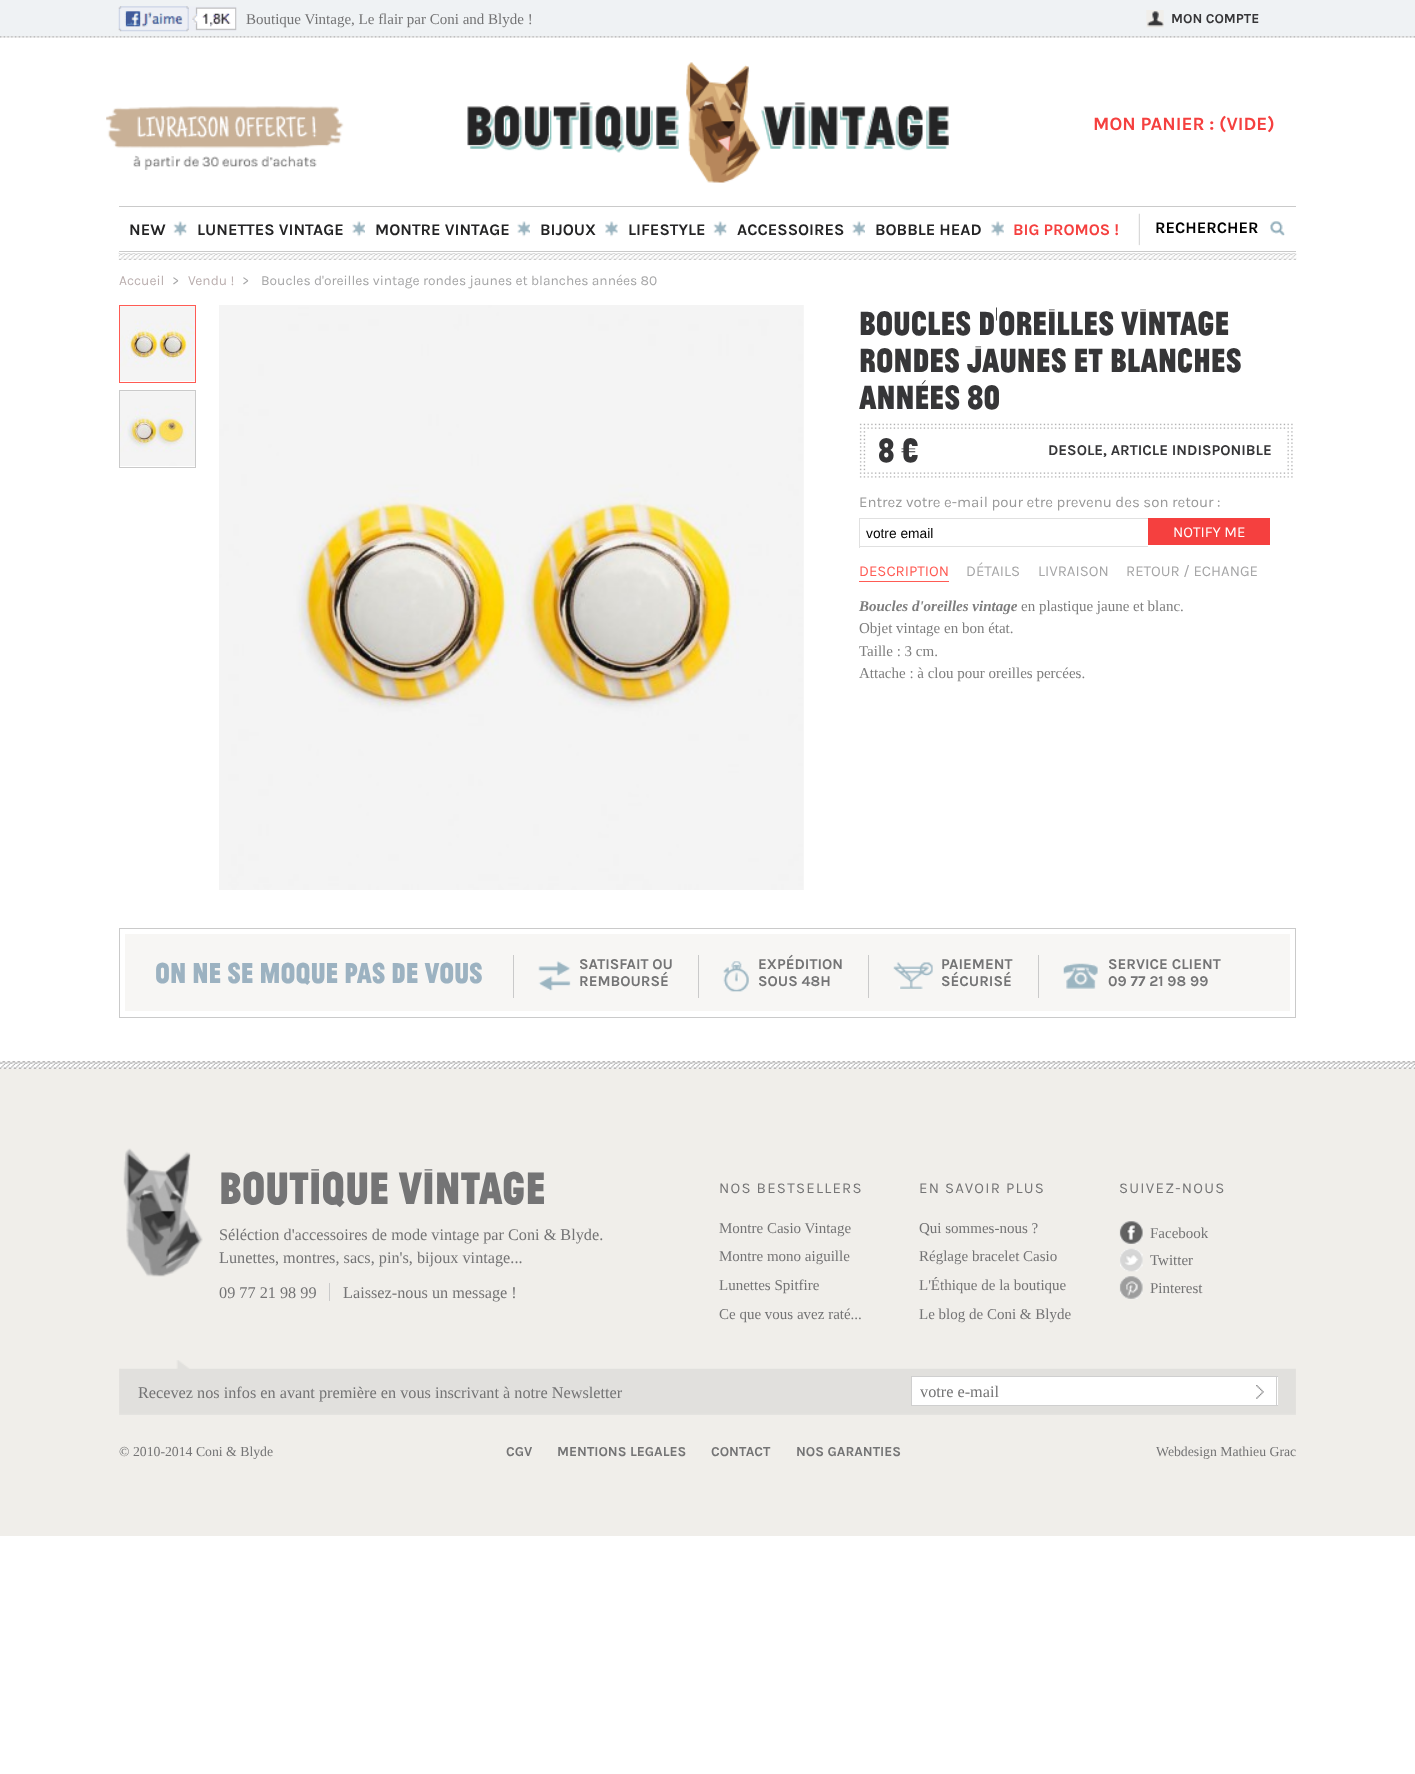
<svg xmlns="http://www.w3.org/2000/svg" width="1415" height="1774">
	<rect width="100%" height="100%" fill="#FFFFFF" />
	<image x="0" y="0" width="1415" height="38" href="assets/img1.png" />
	<image x="118" y="6" width="119" height="26" href="assets/img2.png" />
	<text x="246" y="24" font-family="Liberation Serif" font-size="15" fill="#747475">Boutique Vintage, Le flair par Coni and Blyde !</text>
	<image x="1146" y="10" width="18" height="18" href="assets/img3.png" />
	<text x="1171" y="23" font-family="Karla" font-size="13.75" font-weight="700" fill="#363638">MON COMPTE</text>
	<image x="118" y="252" width="1179" height="8" href="assets/img4.png" />
	<image x="106" y="106" width="238" height="64" href="assets/img5.png" />
	<image x="467" y="62" width="482" height="121" href="assets/img6.png" />
	<text x="1093" y="130" font-family="Karla" font-size="18.75" font-weight="700" fill="#F5403F">MON PANIER : (VIDE)</text>
	<rect x="119" y="252" width="1177" height="1" fill="#FFFFFF" />
	<rect x="119" y="206" width="1177" height="1" fill="#CACACA" />
	<rect x="119" y="251" width="1177" height="1" fill="#CACACA" />
	<image x="173" y="221" width="14" height="16" href="assets/img7.png" />
	<text x="129" y="235" font-family="Karla" font-size="16.25" font-weight="700" fill="#242425">NEW</text>
	<image x="352" y="221" width="13" height="16" href="assets/img8.png" />
	<text x="197" y="235" font-family="Karla" font-size="16.25" font-weight="700" fill="#242425">LUNETTES VINTAGE</text>
	<image x="517" y="221" width="13" height="16" href="assets/img9.png" />
	<text x="375" y="235" font-family="Karla" font-size="16.25" font-weight="700" fill="#242425">MONTRE VINTAGE</text>
	<image x="605" y="221" width="13" height="16" href="assets/img10.png" />
	<text x="540" y="235" font-family="Karla" font-size="16.25" font-weight="700" fill="#242425">BIJOUX</text>
	<image x="713" y="221" width="14" height="16" href="assets/img7.png" />
	<text x="628" y="235" font-family="Karla" font-size="16.25" font-weight="700" fill="#242425">LIFESTYLE</text>
	<image x="852" y="221" width="13" height="16" href="assets/img9.png" />
	<text x="737" y="235" font-family="Karla" font-size="16.25" font-weight="700" fill="#242425">ACCESSOIRES</text>
	<image x="991" y="221" width="13" height="16" href="assets/img11.png" />
	<text x="875" y="235" font-family="Karla" font-size="16.25" font-weight="700" fill="#242425">BOBBLE HEAD</text>
	<image x="1138" y="213" width="2" height="33" href="assets/img12.png" />
	<text x="1013" y="235" font-family="Karla" font-size="16.25" font-weight="700" fill="#F5403F">BIG PROMOS !</text>
	<image x="1270" y="221" width="15" height="15" href="assets/img13.png" />
	<text x="1155" y="233" font-family="Karla" font-size="16.25" font-weight="700" fill="#000000">RECHERCHER</text>
	<text x="119" y="285" font-family="Karla" font-size="13.75" fill="#BBAFAF">Accueil</text>
	<text x="172" y="285" font-family="Karla" font-size="13.75" fill="#A6A6A7">&gt;</text>
	<text x="188" y="285" font-family="Karla" font-size="13.75" fill="#BBAFAF">Vendu !</text>
	<g font-family="Karla" font-size="13.75" fill="#A6A6A7">
		<text x="242" y="285">&gt;</text>
		<text x="261" y="285">Boucles d'oreilles vintage rondes jaunes et blanches années 80</text>
	</g>
	<rect x="119.5" y="305.5" width="76" height="77" fill="none" stroke="#FF5B54" />
	<image x="120" y="306" width="75" height="75" href="assets/img14.png" />
	<rect x="119.5" y="390.5" width="76" height="77" fill="none" stroke="#CACACA" />
	<image x="120" y="391" width="75" height="75" href="assets/img15.png" />
	<image x="219" y="305" width="585" height="585" href="assets/img16.png" />
	<g font-family="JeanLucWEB" font-size="35" font-weight="100" fill="#363638">
		<text x="859" y="335">Boucles d'oreilles vintage</text>
		<text x="859" y="372">rondes jaunes et blanches</text>
		<text x="859" y="409">années 80</text>
	</g>
	<image x="859" y="423" width="434" height="55" href="assets/img17.png" />
	<text x="878" y="462" font-family="JeanLucWEB" font-size="35" font-weight="100" fill="#363638">8 €</text>
	<text x="1048" y="455" font-family="Karla" font-size="15" font-weight="700" fill="#363638">DESOLE, ARTICLE INDISPONIBLE</text>
	<text x="859" y="507" font-family="Karla" font-size="15" fill="#999999">Entrez votre e-mail pour etre prevenu des son retour :</text>
	<rect x="859" y="518" width="289" height="1" fill="#E0E0E0" />
	<rect x="859" y="546" width="289" height="1" fill="#E0E0E0" />
	<rect x="859" y="518" width="1" height="30" fill="#E0E0E0" />
	<text x="866" y="538" font-family="Liberation Sans" font-size="13.75" fill="#000000">votre email</text>
	<rect x="1148" y="518" width="122" height="27" fill="#F5403F" />
	<text x="1173" y="537" font-family="Karla" font-size="15" fill="#FFFFFF">NOTIFY ME</text>
	<rect x="859" y="581" width="90" height="1" fill="#FF5B54" />
	<text x="859" y="576" font-family="Karla" font-size="15" fill="#FF5B54">DESCRIPTION</text>
	<g font-family="Karla" font-size="15" fill="#A6A6A7">
		<text x="966" y="576">DÉTAILS</text>
		<text x="1038" y="576">LIVRAISON</text>
		<text x="1126" y="576">RETOUR / ECHANGE</text>
	</g>
	<text x="859" y="611" font-family="Liberation Serif" font-size="15" font-weight="700" font-style="italic" fill="#7E7E7E">Boucles d'oreilles vintage</text>
	<g font-family="Liberation Serif" font-size="15" fill="#7E7E7E">
		<text x="1021" y="611">en plastique jaune et blanc.</text>
		<text x="859" y="633">Objet vintage en bon état.</text>
		<text x="859" y="656">Taille : 3 cm.</text>
		<text x="859" y="678">Attache : à clou pour oreilles percées.</text>
	</g>
	<rect x="119.5" y="928.5" width="1176" height="89" fill="none" stroke="#CACACA" />
	<rect x="125" y="934" width="1165" height="77" fill="#F7F6F4" />
	<rect x="513" y="955" width="1" height="43" fill="#CACACA" />
	<text x="155" y="983" font-family="JeanLucWEB" font-size="30" font-weight="100" fill="#9CB2C1">ON NE SE MOQUE PAS DE VOUS</text>
	<image x="538" y="961" width="33" height="30" href="assets/img18.png" />
	<rect x="698" y="955" width="1" height="43" fill="#CACACA" />
	<g font-family="Karla" font-size="15" font-weight="700" fill="#747475">
		<text x="579" y="969">SATISFAIT OU</text>
		<text x="579" y="986">REMBOURSÉ</text>
	</g>
	<image x="723" y="961" width="26" height="31" href="assets/img19.png" />
	<rect x="868" y="955" width="1" height="43" fill="#CACACA" />
	<g font-family="Karla" font-size="15" font-weight="700" fill="#747475">
		<text x="758" y="969">EXPÉDITION</text>
		<text x="758" y="986">SOUS 48H</text>
	</g>
	<image x="893" y="962" width="40" height="27" href="assets/img20.png" />
	<rect x="1038" y="955" width="1" height="43" fill="#CACACA" />
	<g font-family="Karla" font-size="15" font-weight="700" fill="#747475">
		<text x="941" y="969">PAIEMENT</text>
		<text x="941" y="986">SÉCURISÉ</text>
	</g>
	<image x="1063" y="963" width="35" height="26" href="assets/img21.png" />
	<g font-family="Karla" font-size="15" font-weight="700" fill="#747475">
		<text x="1108" y="969">SERVICE CLIENT</text>
		<text x="1108" y="986">09 77 21 98 99</text>
	</g>
	<rect x="0" y="1061" width="1415" height="475" fill="#F0EEEA" />
	<image x="0" y="1061" width="1415" height="8" href="assets/img22.png" />
	<image x="123" y="1148" width="80" height="129" href="assets/img23.png" />
	<text x="219" y="1204" font-family="JeanLucWEB" font-size="47.5" font-weight="100" fill="#747475">BOUTIQUE VINTAGE</text>
	<g font-family="Liberation Serif" font-size="16.25" fill="#747475">
		<text x="219" y="1240">Séléction d'accessoires de mode vintage par Coni &amp; Blyde.</text>
		<text x="219" y="1263">Lunettes, montres, sacs, pin's, bijoux vintage...</text>
		<text x="219" y="1298">09 77 21 98 99</text>
		<text x="343" y="1298">Laissez-nous un message !</text>
	</g>
	<rect x="329" y="1283" width="1" height="18" fill="#CACACA" />
	<text x="719" y="1193" font-family="Karla" font-size="15" letter-spacing="1.25" fill="#747475">NOS BESTSELLERS</text>
	<g font-family="Liberation Serif" font-size="15" fill="#747475">
		<text x="719" y="1233">Montre Casio Vintage</text>
		<text x="719" y="1261">Montre mono aiguille</text>
		<text x="719" y="1290">Lunettes Spitfire</text>
		<text x="719" y="1319">Ce que vous avez raté...</text>
	</g>
	<text x="919" y="1193" font-family="Karla" font-size="15" letter-spacing="1.25" fill="#747475">EN SAVOIR PLUS</text>
	<g font-family="Liberation Serif" font-size="15" fill="#747475">
		<text x="919" y="1233">Qui sommes-nous ?</text>
		<text x="919" y="1261">Réglage bracelet Casio</text>
		<text x="919" y="1290">L'Éthique de la boutique</text>
		<text x="919" y="1319">Le blog de Coni &amp; Blyde</text>
	</g>
	<text x="1119" y="1193" font-family="Karla" font-size="15" letter-spacing="1.25" fill="#747475">SUIVEZ-NOUS</text>
	<image x="1119" y="1221" width="24" height="23" href="assets/img24.png" />
	<text x="1150" y="1238" font-family="Liberation Serif" font-size="15" fill="#747475">Facebook</text>
	<image x="1120" y="1248" width="23" height="24" href="assets/img25.png" />
	<text x="1150" y="1265" font-family="Liberation Serif" font-size="15" fill="#747475">Twitter</text>
	<image x="1119" y="1276" width="24" height="23" href="assets/img26.png" />
	<text x="1150" y="1293" font-family="Liberation Serif" font-size="15" fill="#747475">Pinterest</text>
	<image x="119" y="1360" width="1177" height="55" href="assets/img27.png" />
	<text x="138" y="1398" font-family="Liberation Serif" font-size="16.25" fill="#747475">Recevez nos infos en avant première en vous inscrivant à notre Newsletter</text>
	<rect x="912" y="1377" width="366" height="28" fill="#FFFFFF" />
	<rect x="911" y="1376" width="367" height="1" fill="#CFCFCF" />
	<rect x="911" y="1405" width="284" height="1" fill="#CFCFCF" />
	<rect x="911" y="1376" width="1" height="30" fill="#CFCFCF" />
	<text x="920" y="1397" font-family="Liberation Serif" font-size="16.25" fill="#747475">votre e-mail</text>
	<image x="1256" y="1385" width="8" height="14" href="assets/img28.png" />
	<rect x="1276" y="1376" width="1" height="30" fill="#CFCFCF" />
	<rect x="1195" y="1405" width="83" height="1" fill="#CFCFCF" />
	<text x="119" y="1456" font-family="Liberation Serif" font-size="13.75" fill="#747475">© 2010-2014 Coni &amp; Blyde</text>
	<g font-family="Karla" font-size="13.75" font-weight="700" fill="#747475">
		<text x="506" y="1456">CGV</text>
		<text x="557" y="1456">MENTIONS LEGALES</text>
		<text x="711" y="1456">CONTACT</text>
		<text x="796" y="1456">NOS GARANTIES</text>
	</g>
	<text x="1156" y="1456" font-family="Liberation Serif" font-size="13.75" fill="#747475">Webdesign Mathieu Grac</text>
</svg>
